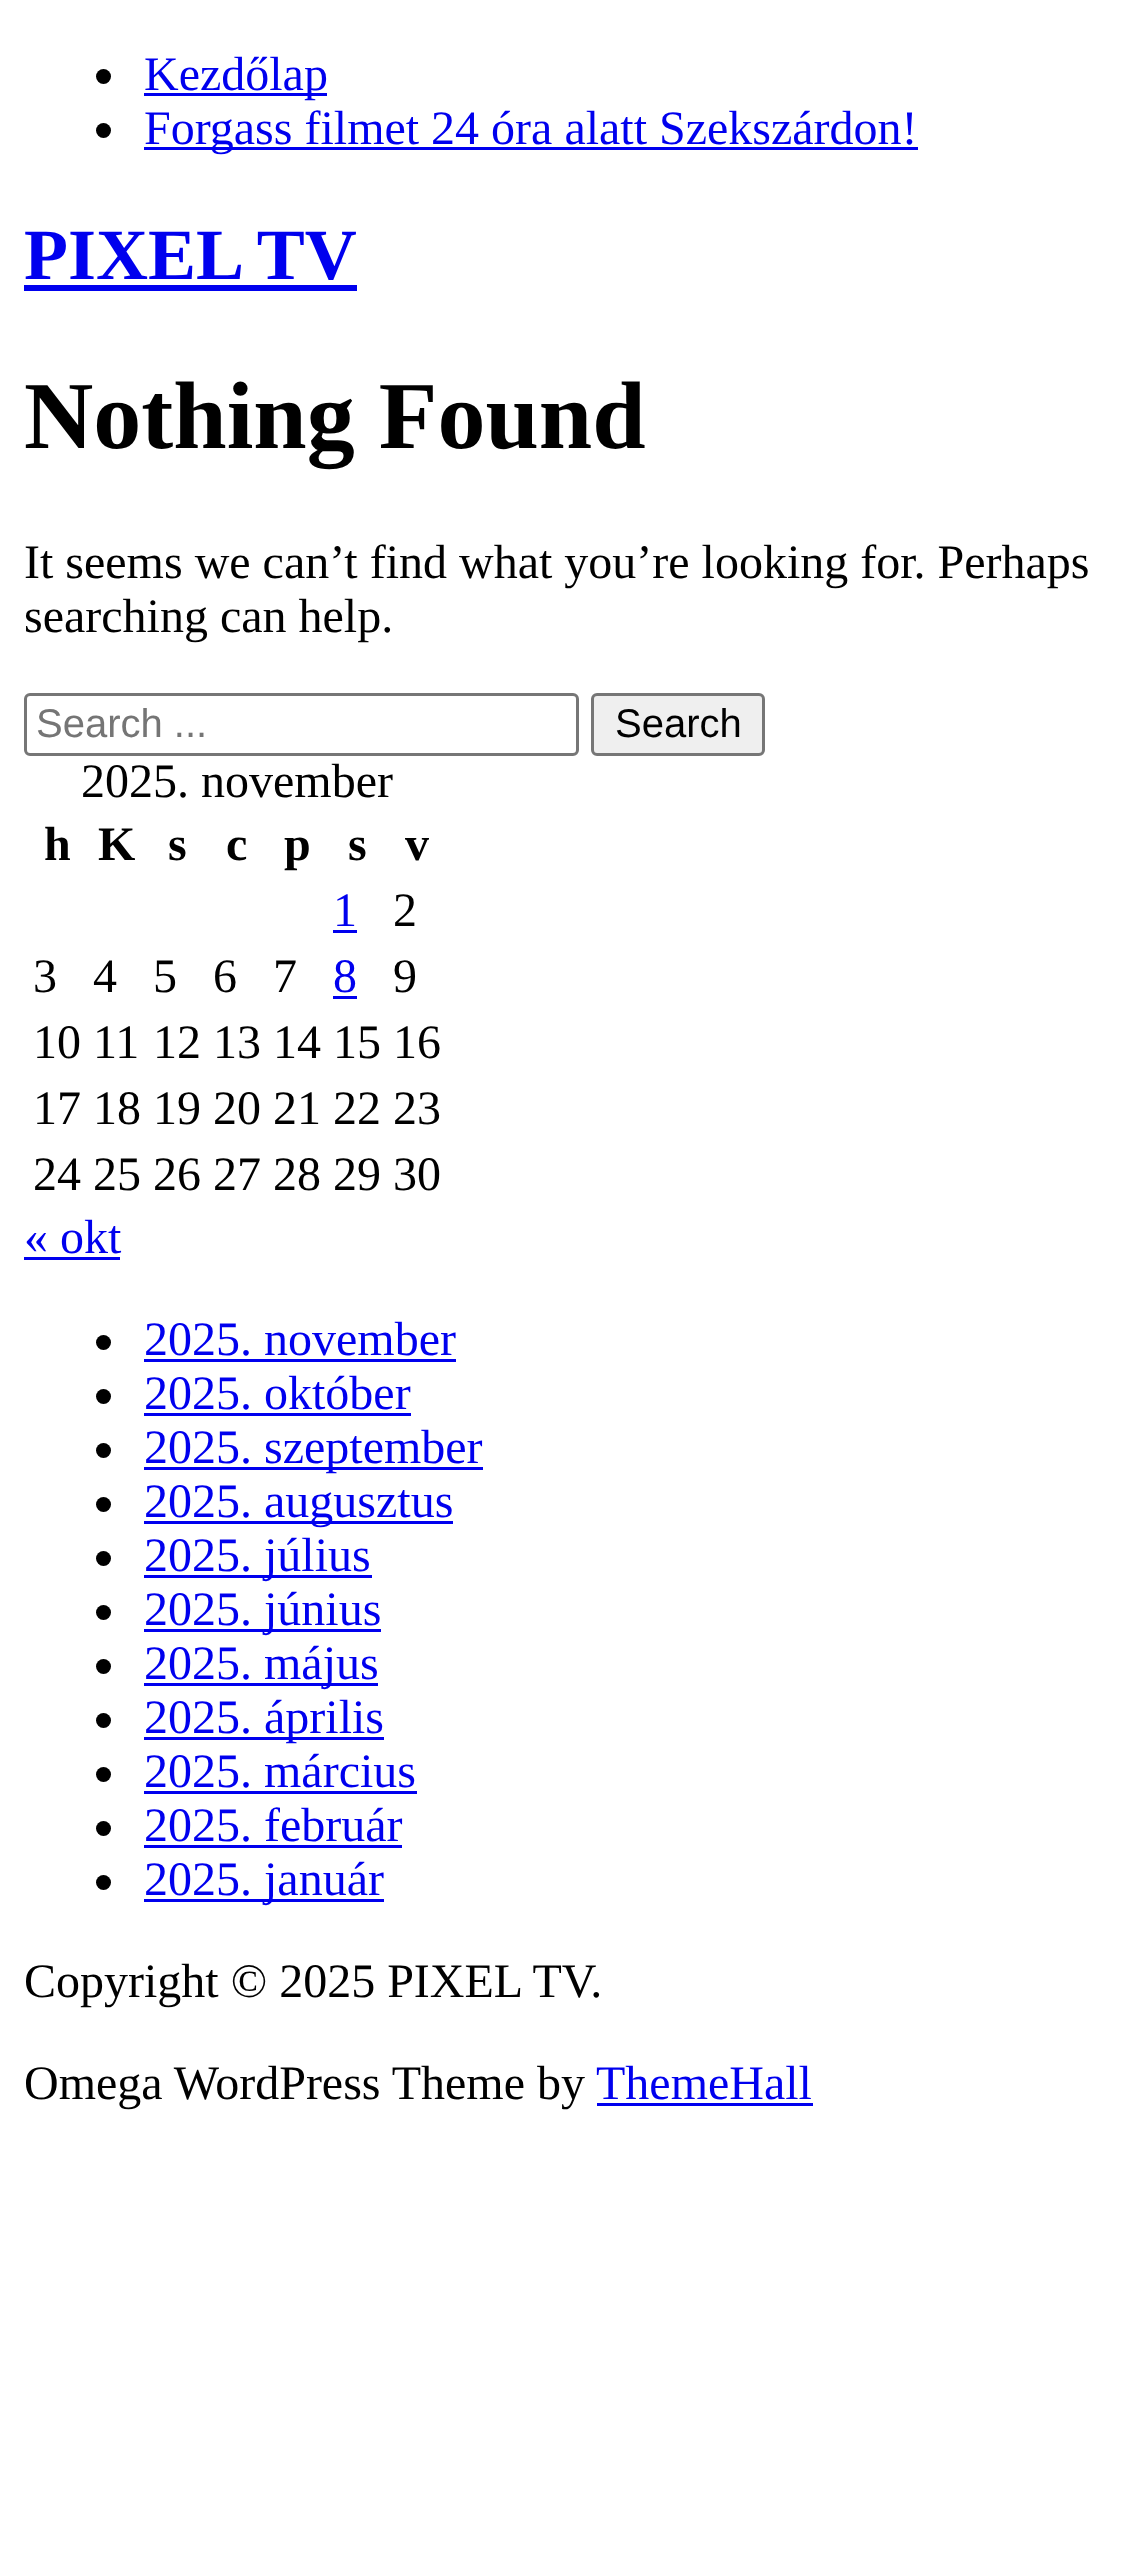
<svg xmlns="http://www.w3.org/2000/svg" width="1131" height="2571">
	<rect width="100%" height="100%" fill="#FFFFFF" />
	<circle cx="103.5" cy="76.5" r="7.5" fill="#000000" />
	<rect x="144" y="93" width="183" height="3" fill="#0000EE" />
	<text x="144" y="90" font-family="Liberation Serif" font-size="48" fill="#0000EE">Kezdőlap</text>
	<circle cx="103.5" cy="130.5" r="7.5" fill="#000000" />
	<rect x="144" y="147" width="774" height="3" fill="#0000EE" />
	<text x="144" y="144" font-family="Liberation Serif" font-size="48" fill="#0000EE">Forgass filmet 24 óra alatt Szekszárdon!</text>
	<text x="24" y="279" font-family="Liberation Serif" font-size="72" font-weight="700" fill="#0000EE">PIXEL TV</text>
	<rect x="24" y="285" width="333" height="6" fill="#0000EE" />
	<text x="24" y="448" font-family="Liberation Serif" font-size="96" font-weight="700" fill="#000000">Nothing Found</text>
	<g font-family="Liberation Serif" font-size="48" fill="#000000">
		<text x="24" y="578">It seems we can’t find what you’re looking for. Perhaps</text>
		<text x="24" y="632">searching can help.</text>
	</g>
	<rect x="25.5" y="694.5" width="552" height="60" rx="4.5" fill="none" stroke="#767676" stroke-width="3" />
	<text x="36" y="737" font-family="Liberation Sans" font-size="40" fill="#757575">Search ...</text>
	<rect x="592.5" y="694.5" width="171" height="60" rx="4.5" fill="#EFEFEF" stroke="#767676" stroke-width="3" />
	<text x="615" y="737" font-family="Liberation Sans" font-size="40" fill="#000000">Search</text>
	<text x="81" y="797" font-family="Liberation Serif" font-size="48" fill="#000000">2025. november</text>
	<g font-family="Liberation Serif" font-size="48" font-weight="700" fill="#000000">
		<text x="44" y="860">h</text>
		<text x="98" y="860">K</text>
		<text x="168" y="860">s</text>
		<text x="226" y="860">c</text>
		<text x="284" y="860">p</text>
		<text x="348" y="860">s</text>
		<text x="405" y="860">v</text>
	</g>
	<text x="333" y="926" font-family="Liberation Serif" font-size="48" fill="#0000EE">1</text>
	<rect x="333" y="930" width="24" height="3" fill="#0000EE" />
	<g font-family="Liberation Serif" font-size="48" fill="#000000">
		<text x="393" y="926">2</text>
		<text x="33" y="992">3</text>
		<text x="93" y="992">4</text>
		<text x="153" y="992">5</text>
		<text x="213" y="992">6</text>
		<text x="273" y="992">7</text>
	</g>
	<text x="333" y="992" font-family="Liberation Serif" font-size="48" fill="#0000EE">8</text>
	<rect x="333" y="996" width="24" height="3" fill="#0000EE" />
	<g font-family="Liberation Serif" font-size="48" fill="#000000">
		<text x="393" y="992">9</text>
		<text x="33" y="1058">10 11</text>
		<text x="153" y="1058">12 13 14 15 16</text>
		<text x="33" y="1124">17 18 19 20 21 22 23</text>
		<text x="33" y="1190">24 25 26 27 28 29 30</text>
	</g>
	<text x="24" y="1253" font-family="Liberation Serif" font-size="48" fill="#0000EE">« okt</text>
	<rect x="24" y="1257" width="96" height="3" fill="#0000EE" />
	<circle cx="103.5" cy="1342.5" r="7.5" fill="#000000" />
	<text x="144" y="1355" font-family="Liberation Serif" font-size="48" fill="#0000EE">2025. november</text>
	<rect x="144" y="1359" width="312" height="3" fill="#0000EE" />
	<circle cx="103.5" cy="1396.5" r="7.5" fill="#000000" />
	<text x="144" y="1409" font-family="Liberation Serif" font-size="48" fill="#0000EE">2025. október</text>
	<rect x="144" y="1413" width="267" height="3" fill="#0000EE" />
	<circle cx="103.5" cy="1450.5" r="7.5" fill="#000000" />
	<rect x="144" y="1467" width="339" height="3" fill="#0000EE" />
	<text x="144" y="1463" font-family="Liberation Serif" font-size="48" fill="#0000EE">2025. szeptember</text>
	<circle cx="103.5" cy="1504.5" r="7.5" fill="#000000" />
	<rect x="144" y="1521" width="309" height="3" fill="#0000EE" />
	<text x="144" y="1517" font-family="Liberation Serif" font-size="48" fill="#0000EE">2025. augusztus</text>
	<circle cx="103.5" cy="1558.5" r="7.5" fill="#000000" />
	<rect x="144" y="1575" width="228" height="3" fill="#0000EE" />
	<text x="144" y="1571" font-family="Liberation Serif" font-size="48" fill="#0000EE">2025. július</text>
	<circle cx="103.5" cy="1612.5" r="7.5" fill="#000000" />
	<rect x="144" y="1629" width="237" height="3" fill="#0000EE" />
	<text x="144" y="1625" font-family="Liberation Serif" font-size="48" fill="#0000EE">2025. június</text>
	<circle cx="103.5" cy="1666.5" r="7.5" fill="#000000" />
	<rect x="144" y="1683" width="234" height="3" fill="#0000EE" />
	<text x="144" y="1679" font-family="Liberation Serif" font-size="48" fill="#0000EE">2025. május</text>
	<circle cx="103.5" cy="1720.5" r="7.5" fill="#000000" />
	<rect x="144" y="1737" width="240" height="3" fill="#0000EE" />
	<text x="144" y="1733" font-family="Liberation Serif" font-size="48" fill="#0000EE">2025. április</text>
	<circle cx="103.5" cy="1774.5" r="7.5" fill="#000000" />
	<text x="144" y="1787" font-family="Liberation Serif" font-size="48" fill="#0000EE">2025. március</text>
	<rect x="144" y="1791" width="273" height="3" fill="#0000EE" />
	<circle cx="103.5" cy="1828.5" r="7.5" fill="#000000" />
	<text x="144" y="1841" font-family="Liberation Serif" font-size="48" fill="#0000EE">2025. február</text>
	<rect x="144" y="1845" width="258" height="3" fill="#0000EE" />
	<circle cx="103.5" cy="1882.5" r="7.5" fill="#000000" />
	<rect x="144" y="1899" width="240" height="3" fill="#0000EE" />
	<text x="144" y="1895" font-family="Liberation Serif" font-size="48" fill="#0000EE">2025. január</text>
	<g font-family="Liberation Serif" font-size="48" fill="#000000">
		<text x="24" y="1997">Copyright © 2025 PIXEL TV.</text>
		<text x="24" y="2099">Omega WordPress Theme by</text>
	</g>
	<text x="596" y="2099" font-family="Liberation Serif" font-size="48" fill="#0000EE">ThemeHall</text>
	<rect x="597" y="2103" width="216" height="3" fill="#0000EE" />
</svg>
